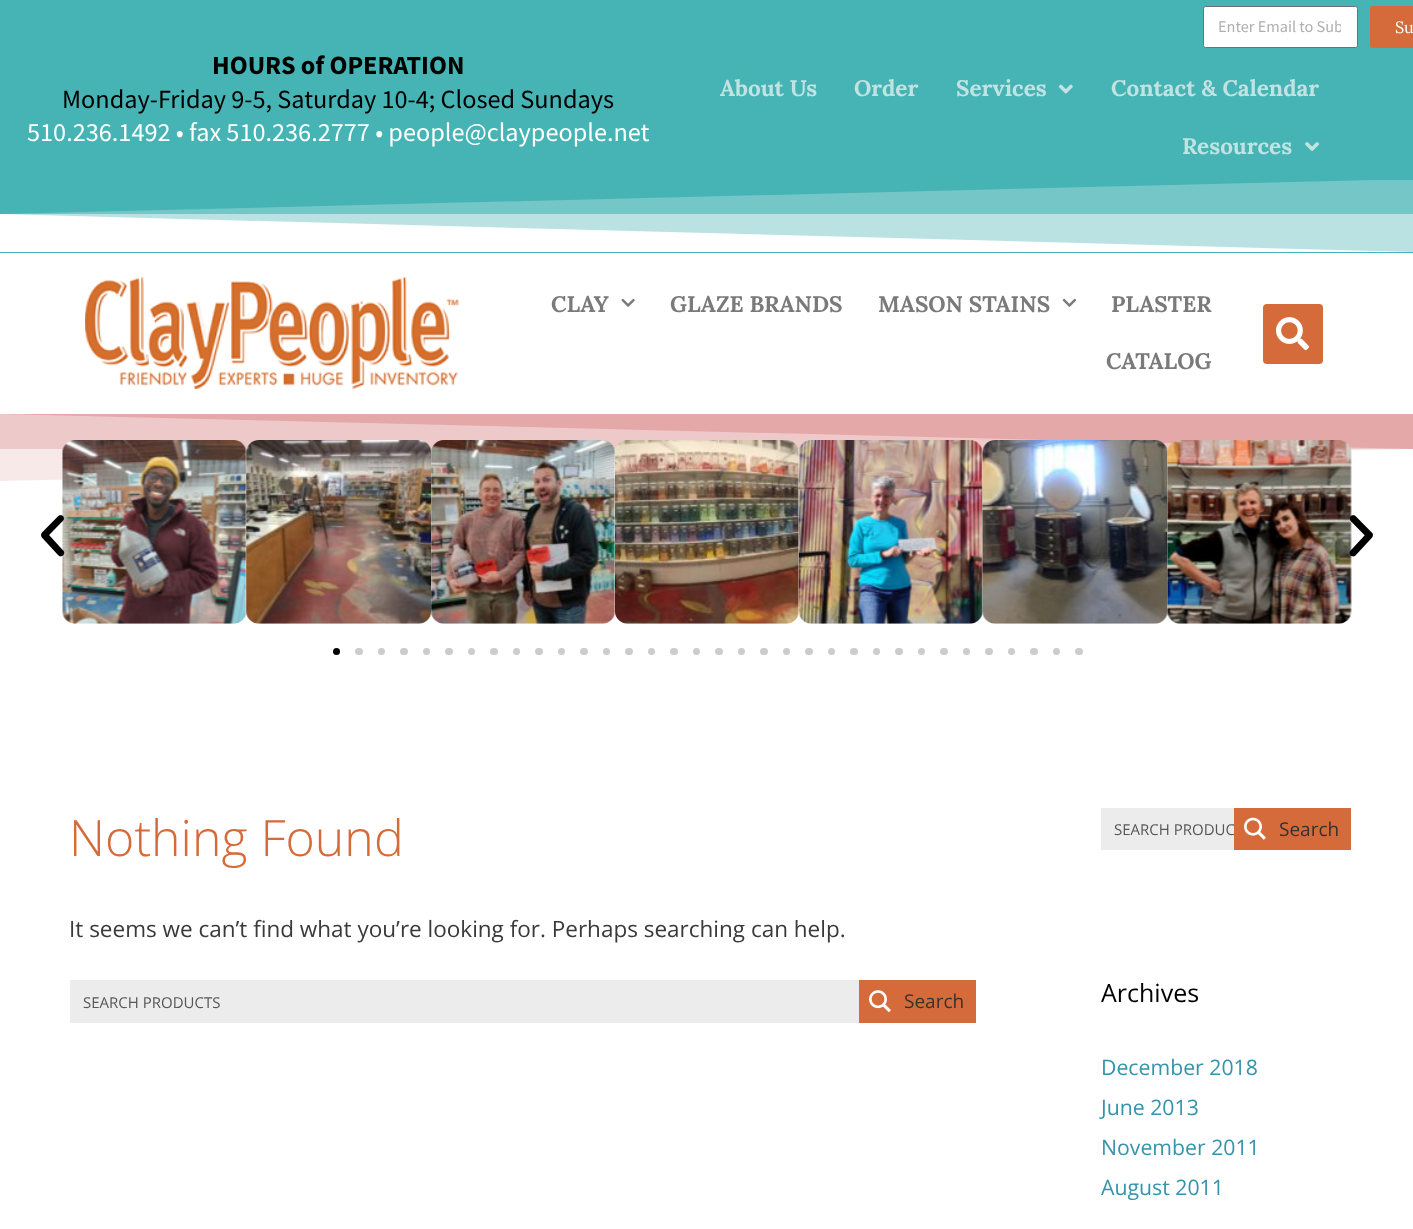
<svg xmlns="http://www.w3.org/2000/svg" width="1413" height="1229">
	<defs>
		<clipPath id="clip1"><rect x="1219" y="15" width="122" height="21" /></clipPath>
		<clipPath id="clip2"><rect x="0" y="180" width="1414" height="74" /></clipPath>
	</defs>
	<rect width="100%" height="100%" fill="#FFFFFF" />
	<rect x="0" y="414" width="1413" height="35" fill="#F2D4D4" />
	<rect x="0" y="0" width="1413" height="253" fill="#46B3B4" />
	<rect x="1203.5" y="6.5" width="154" height="41" rx="2" fill="#FFFFFF" stroke="#69727D" />
	<g clip-path="url(#clip1)">
		<text x="1218" y="32" font-family="Source Sans Pro" font-size="16.25" fill="#AFAFAF">Enter Email to Sub</text>
	</g>
	<rect x="1370" y="6" width="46" height="42" rx="2.5" fill="#D56B3A" />
	<text x="1395" y="33" font-family="Lora" font-size="16.25" fill="#FFFFFF">Su</text>
	<rect x="1" y="214" width="1412" height="38" fill="#A3D9DA" />
	<g font-family="Source Sans Pro" font-size="26.25" font-weight="700" fill="#000000">
		<text x="212" y="74">HOUR</text>
		<text x="281" y="74">S of OPERATION</text>
	</g>
	<text x="62" y="108" font-family="Source Sans Pro" font-size="26.25" fill="#000000">Monday-Friday 9-5, Saturday 10-4; Closed Sundays</text>
	<text x="27" y="141" font-family="Source Sans Pro" font-size="26.25" fill="#FFFFFF">510.236.1492 • fax 510.236.2777 • people@claypeople.net</text>
	<g font-family="Lora" font-size="22.5" font-weight="700" fill="#C2E3E3">
		<text x="720" y="96">About Us</text>
		<text x="854" y="96">Order</text>
		<text x="956" y="96">Services</text>
	</g>
	<image x="1058" y="84" width="15" height="10" href="assets/img1.png" />
	<g font-family="Lora" font-size="22.5" font-weight="700" fill="#C2E3E3">
		<text x="1111" y="96">Contact &amp; Calendar</text>
		<text x="1182" y="154">Resources</text>
	</g>
	<image x="1305" y="142" width="15" height="9" href="assets/img2.png" />
	<path d="M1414 252H-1V214Z" fill="#FFFFFF" />
	<g clip-path="url(#clip2)">
		<path d="M-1 252H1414V179L-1 214Z" fill="#FFFFFF" fill-opacity="0.25" />
	</g>
	<image x="85" y="276" width="374" height="114" href="assets/img3.png" />
	<text x="551" y="312" font-family="Lora" font-size="22.5" font-weight="700" fill="#7A7A7A">CLAY</text>
	<image x="621" y="298" width="14" height="9" href="assets/img4.png" />
	<g font-family="Lora" font-size="22.5" font-weight="700" fill="#7A7A7A">
		<text x="670" y="312">GLAZE BRANDS</text>
		<text x="878" y="312">MASON STAINS</text>
	</g>
	<image x="1062" y="298" width="14" height="9" href="assets/img5.png" />
	<g font-family="Lora" font-size="22.5" font-weight="700" fill="#7A7A7A">
		<text x="1111" y="312">PLASTER</text>
		<text x="1106" y="369">CATALOG</text>
	</g>
	<rect x="1263" y="304" width="60" height="60" rx="4" fill="#D56B3A" />
	<image x="1276" y="317" width="33" height="34" href="assets/img6.png" />
	<path d="M0 414H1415V449Z" fill="#E4A8A8" />
	<path d="M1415 414H0V481L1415 449Z" fill="#E4A8A8" fill-opacity="0.25" />
	<image x="62" y="440" width="185" height="184" href="assets/img8.png" />
	<image x="41" y="515" width="24" height="42" href="assets/img7.png" />
	<image x="246" y="440" width="186" height="184" href="assets/img9.png" />
	<image x="431" y="440" width="185" height="184" href="assets/img10.png" />
	<image x="615" y="440" width="184" height="184" href="assets/img11.png" />
	<image x="798" y="440" width="185" height="184" href="assets/img12.png" />
	<image x="982" y="440" width="186" height="184" href="assets/img13.png" />
	<image x="1167" y="440" width="185" height="184" href="assets/img14.png" />
	<image x="1349" y="515" width="24" height="42" href="assets/img15.png" />
	<circle cx="336.5" cy="651.5" r="3.5" fill="#000000" />
	<rect x="355" y="648" width="8" height="7" rx="3.5" fill="#CCCCCC" />
	<circle cx="381.5" cy="651.5" r="3.5" fill="#CCCCCC" />
	<rect x="400" y="648" width="8" height="7" rx="3.5" fill="#CCCCCC" />
	<circle cx="426.5" cy="651.5" r="3.5" fill="#CCCCCC" />
	<rect x="445" y="648" width="8" height="7" rx="3.5" fill="#CCCCCC" />
	<circle cx="471.5" cy="651.5" r="3.5" fill="#CCCCCC" />
	<rect x="490" y="648" width="8" height="7" rx="3.5" fill="#CCCCCC" />
	<circle cx="516.5" cy="651.5" r="3.5" fill="#CCCCCC" />
	<rect x="535" y="648" width="8" height="7" rx="3.5" fill="#CCCCCC" />
	<circle cx="561.5" cy="651.5" r="3.5" fill="#CCCCCC" />
	<rect x="580" y="648" width="8" height="7" rx="3.5" fill="#CCCCCC" />
	<circle cx="606.5" cy="651.5" r="3.5" fill="#CCCCCC" />
	<rect x="625" y="648" width="8" height="7" rx="3.5" fill="#CCCCCC" />
	<circle cx="651.5" cy="651.5" r="3.5" fill="#CCCCCC" />
	<rect x="670" y="648" width="8" height="7" rx="3.5" fill="#CCCCCC" />
	<circle cx="696.5" cy="651.5" r="3.5" fill="#CCCCCC" />
	<rect x="715" y="648" width="8" height="7" rx="3.5" fill="#CCCCCC" />
	<circle cx="741.5" cy="651.5" r="3.5" fill="#CCCCCC" />
	<rect x="760" y="648" width="8" height="7" rx="3.5" fill="#CCCCCC" />
	<circle cx="786.5" cy="651.5" r="3.5" fill="#CCCCCC" />
	<rect x="805" y="648" width="8" height="7" rx="3.5" fill="#CCCCCC" />
	<circle cx="831.5" cy="651.5" r="3.5" fill="#CCCCCC" />
	<rect x="850" y="648" width="8" height="7" rx="3.5" fill="#CCCCCC" />
	<circle cx="876.5" cy="651.5" r="3.5" fill="#CCCCCC" />
	<rect x="895" y="648" width="8" height="7" rx="3.5" fill="#CCCCCC" />
	<circle cx="921.5" cy="651.5" r="3.5" fill="#CCCCCC" />
	<rect x="940" y="648" width="8" height="7" rx="3.5" fill="#CCCCCC" />
	<circle cx="966.5" cy="651.5" r="3.5" fill="#CCCCCC" />
	<rect x="985" y="648" width="8" height="7" rx="3.5" fill="#CCCCCC" />
	<circle cx="1011.5" cy="651.5" r="3.5" fill="#CCCCCC" />
	<rect x="1030" y="648" width="8" height="7" rx="3.5" fill="#CCCCCC" />
	<circle cx="1056.5" cy="651.5" r="3.5" fill="#CCCCCC" />
	<rect x="1075" y="648" width="8" height="7" rx="3.5" fill="#CCCCCC" />
	<text x="69" y="856" font-family="Open Sans" font-size="50" font-weight="300" fill="#D56B3A">Nothing Found</text>
	<text x="69" y="937" font-family="Open Sans" font-size="22.5" fill="#3A3A3A">It seems we can’t find what you’re looking for. Perhaps searching can help.</text>
	<rect x="70" y="980" width="789" height="43" fill="#ECECEC" />
	<text x="83" y="1008" font-family="Open Sans" font-size="15" fill="#585757">SEARCH PRODUCTS</text>
	<rect x="859" y="980" width="117" height="43" fill="#D56B3A" />
	<image x="869" y="990" width="22" height="23" href="assets/img16.png" />
	<text x="904" y="1008" font-family="Open Sans" font-size="19" fill="#333333">Search</text>
	<rect x="1101" y="808" width="133" height="42" fill="#ECECEC" />
	<text x="1114" y="835" font-family="Open Sans" font-size="15" fill="#585757">SEARCH PRODUC</text>
	<rect x="1234" y="808" width="117" height="42" fill="#D56B3A" />
	<image x="1244" y="817" width="22" height="23" href="assets/img17.png" />
	<text x="1279" y="836" font-family="Open Sans" font-size="19" fill="#333333">Search</text>
	<text x="1101" y="1002" font-family="Open Sans" font-size="25" fill="#000000">Archives</text>
	<g font-family="Open Sans" font-size="21.25" fill="#3594AD">
		<text x="1101" y="1075">December 2018</text>
		<text x="1101" y="1115">June 2013</text>
		<text x="1101" y="1155">November 2011</text>
		<text x="1101" y="1195">August 2011</text>
	</g>
</svg>
